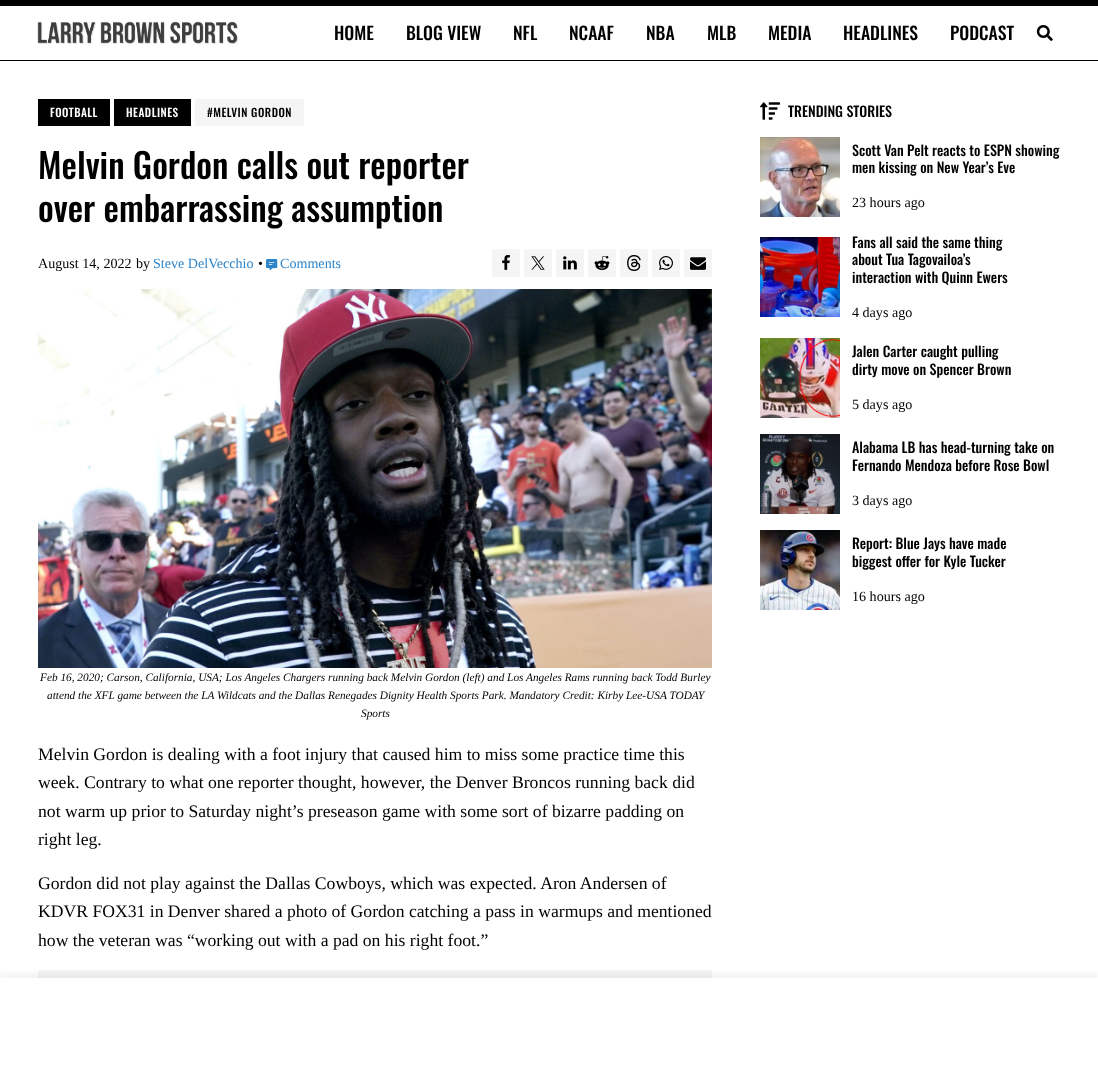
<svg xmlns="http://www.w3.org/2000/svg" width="1098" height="1078">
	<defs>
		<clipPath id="clip1"><rect x="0" y="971" width="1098" height="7" /></clipPath>
	</defs>
	<rect width="100%" height="100%" fill="#FFFFFF" />
	<rect x="0" y="0" width="1098" height="6" fill="#000000" />
	<rect x="0" y="60" width="1098" height="1" fill="#000000" />
	<image x="37" y="21" width="201" height="23" href="assets/img1.png" />
	<g font-family="Oswald" font-size="17.65" font-weight="500" fill="#000000">
		<text x="334" y="40">HOME</text>
		<text x="406" y="40">BLOG VIEW</text>
		<text x="513" y="40">NFL</text>
		<text x="569" y="40">NCAAF</text>
		<text x="646" y="40">NBA</text>
		<text x="707" y="40">MLB</text>
		<text x="768" y="40">MEDIA</text>
		<text x="843" y="40">HEADLINES</text>
		<text x="950" y="40">PODCAST</text>
	</g>
	<image x="1036" y="25" width="17" height="16" href="assets/img2.png" />
	<rect x="38" y="99" width="72" height="27" fill="#000000" />
	<text x="50" y="117" font-family="Oswald" font-size="11.3" font-weight="500" letter-spacing="0.5" fill="#FFFFFF">FOOTBALL</text>
	<rect x="114" y="99" width="77" height="27" fill="#000000" />
	<text x="126" y="117" font-family="Oswald" font-size="11.3" font-weight="500" letter-spacing="0.5" fill="#FFFFFF">HEADLINES</text>
	<rect x="195" y="99" width="109" height="27" fill="#F5F5F5" />
	<text x="207" y="117" font-family="Oswald" font-size="11.3" font-weight="500" letter-spacing="0.5" fill="#000000">#MELVIN GORDON</text>
	<g font-family="Oswald" font-size="34.5" font-weight="500" fill="#000000">
		<text x="38" y="179">Melvin Gordon calls out reporter</text>
		<text x="38" y="222">over embarrassing assumption</text>
	</g>
	<g font-family="Tinos" font-size="14.1" fill="#000000">
		<text x="38" y="268">August 14, 2022</text>
		<text x="136" y="268">by</text>
	</g>
	<text x="153" y="268" font-family="Tinos" font-size="14.1" fill="#2F85C9">Steve DelVecchio</text>
	<text x="258" y="268" font-family="Tinos" font-size="14.1" fill="#000000">•</text>
	<image x="266" y="259" width="12" height="11" href="assets/img3.png" />
	<text x="280" y="268" font-family="Tinos" font-size="14.1" fill="#2F85C9">Comments</text>
	<rect x="492" y="249" width="28" height="28" fill="#F5F5F5" />
	<image x="502" y="255" width="8" height="15" href="assets/img4.png" />
	<rect x="524" y="249" width="28" height="28" fill="#F5F5F5" />
	<image x="531" y="256" width="14" height="14" href="assets/img5.png" />
	<rect x="556" y="249" width="28" height="28" fill="#F5F5F5" />
	<image x="563" y="256" width="14" height="14" href="assets/img6.png" />
	<rect x="588" y="249" width="28" height="28" fill="#F5F5F5" />
	<image x="594" y="256" width="16" height="14" href="assets/img7.png" />
	<rect x="620" y="249" width="28" height="28" fill="#F5F5F5" />
	<image x="627" y="255" width="14" height="16" href="assets/img8.png" />
	<rect x="652" y="249" width="28" height="28" fill="#F5F5F5" />
	<image x="659" y="256" width="14" height="14" href="assets/img9.png" />
	<rect x="684" y="249" width="28" height="28" fill="#F5F5F5" />
	<image x="690" y="257" width="16" height="13" href="assets/img10.png" />
	<image x="38" y="289" width="674" height="379" href="assets/img11.png" />
	<g font-family="Tinos" font-size="11.3" font-style="italic" fill="#000000">
		<text x="40" y="681">Feb 16, 2020; Carson, California, USA; Los Angeles Chargers running back Melvin Gordon (left) and Los Angeles Rams running back Todd Burley</text>
		<text x="47" y="699">attend the XFL game between the LA Wildcats and the Dallas Renegades Dignity Health Sports Park. Mandatory Credit: Kirby Lee-USA TODAY</text>
		<text x="361" y="717">Sports</text>
	</g>
	<g font-family="Tinos" font-size="17.65" fill="#000000">
		<text x="38" y="760">Melvin Gordon is dealing with a foot injury that caused him to miss some practice time this</text>
		<text x="38" y="788">week. Contrary to what one reporter thought, however, the Denver Broncos running back did</text>
		<text x="38" y="817">not warm up prior to Saturday night’s preseason game with some sort of bizarre padding on</text>
		<text x="38" y="845">right leg.</text>
		<text x="38" y="889">Gordon did not play against the Dallas Cowboys, which was expected. Aron Andersen of</text>
		<text x="38" y="917">KDVR FOX31 in Denver shared a photo of Gordon catching a pass in warmups and mentioned</text>
		<text x="38" y="946">how the veteran was “working out with a pad on his right foot.”</text>
	</g>
	<rect x="38" y="970" width="674" height="8" fill="#F5F5F5" />
	<image x="760" y="102" width="20" height="18" href="assets/img12.png" />
	<text x="788" y="117" font-family="Oswald" font-size="14.1" font-weight="500" fill="#000000">TRENDING STORIES</text>
	<image x="760" y="137" width="80" height="80" href="assets/img13.png" />
	<g font-family="Oswald" font-size="14.1" font-weight="500" fill="#000000">
		<text x="852" y="156">Scott Van Pelt reacts to ESPN showing</text>
		<text x="852" y="173">men kissing on New Year’s Eve</text>
	</g>
	<text x="852" y="207" font-family="Tinos" font-size="14.1" fill="#000000">23 hours ago</text>
	<image x="760" y="237" width="80" height="80" href="assets/img14.png" />
	<g font-family="Oswald" font-size="14.1" font-weight="500" fill="#000000">
		<text x="852" y="248">Fans all said the same thing</text>
		<text x="852" y="265">about Tua Tagovailoa’s</text>
		<text x="852" y="283">interaction with Quinn Ewers</text>
	</g>
	<text x="852" y="317" font-family="Tinos" font-size="14.1" fill="#000000">4 days ago</text>
	<image x="760" y="338" width="80" height="80" href="assets/img15.png" />
	<g font-family="Oswald" font-size="14.1" font-weight="500" fill="#000000">
		<text x="852" y="357">Jalen Carter caught pulling</text>
		<text x="852" y="375">dirty move on Spencer Brown</text>
	</g>
	<text x="852" y="409" font-family="Tinos" font-size="14.1" fill="#000000">5 days ago</text>
	<image x="760" y="434" width="80" height="80" href="assets/img16.png" />
	<g font-family="Oswald" font-size="14.1" font-weight="500" fill="#000000">
		<text x="852" y="453">Alabama LB has head-turning take on</text>
		<text x="852" y="471">Fernando Mendoza before Rose Bowl</text>
	</g>
	<text x="852" y="505" font-family="Tinos" font-size="14.1" fill="#000000">3 days ago</text>
	<image x="760" y="530" width="80" height="80" href="assets/img17.png" />
	<g font-family="Oswald" font-size="14.1" font-weight="500" fill="#000000">
		<text x="852" y="549">Report: Blue Jays have made</text>
		<text x="852" y="567">biggest offer for Kyle Tucker</text>
	</g>
	<text x="852" y="601" font-family="Tinos" font-size="14.1" fill="#000000">16 hours ago</text>
	<g clip-path="url(#clip1)">
		<rect x="0" y="978" width="1098" height="100" fill="#000000" fill-opacity="0.1" filter="blur(8px)" />
	</g>
</svg>
